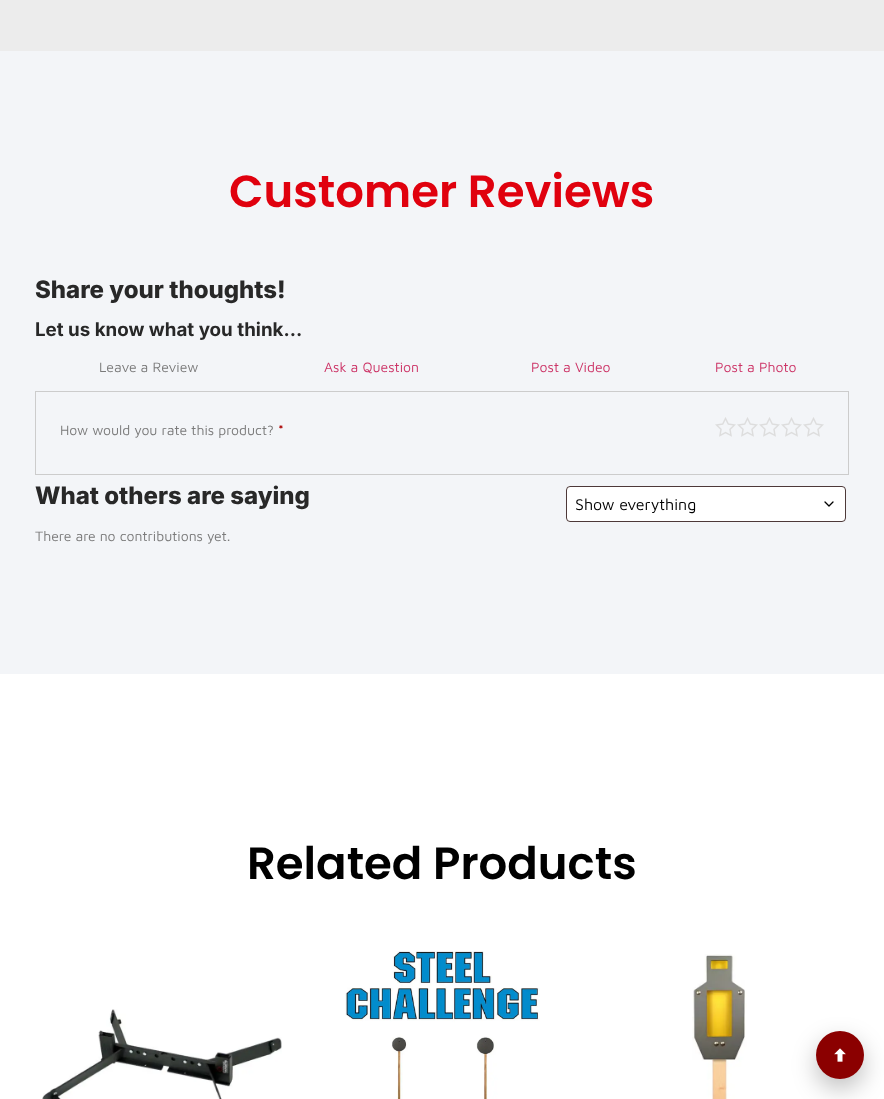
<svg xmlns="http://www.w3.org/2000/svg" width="884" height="1099">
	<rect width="100%" height="100%" fill="#FFFFFF" />
	<rect x="0" y="0" width="884" height="51" fill="#ECECEC" />
	<rect x="0" y="51" width="884" height="623" fill="#F3F5F8" />
	<text x="229" y="207" font-family="Poppins" font-size="45" font-weight="600" fill="#E0010E">Customer Reviews</text>
	<text x="35" y="298" font-family="Inter" font-size="24" font-weight="800" fill="#282828">Share your thoughts!</text>
	<text x="35" y="336" font-family="Inter" font-size="18.75" font-weight="700" fill="#282828">Let us know what you think...</text>
	<text x="99" y="372" font-family="Maven Pro" font-size="14" fill="#7A7A7A">Leave a Review</text>
	<g font-family="Maven Pro" font-size="14" fill="#CC3366">
		<text x="324" y="372">Ask a Question</text>
		<text x="531" y="372">Post a Video</text>
		<text x="715" y="372">Post a Photo</text>
	</g>
	<rect x="35.5" y="391.5" width="813" height="83" fill="none" stroke="#CCCCCC" />
	<text x="60" y="435" font-family="Maven Pro" font-size="14" fill="#7A7A7A">How would you rate this product?</text>
	<text x="278" y="435" font-family="Maven Pro" font-size="14" font-weight="700" fill="#AA0000">*</text>
	<image x="715" y="417" width="21" height="20" href="assets/img1.png" />
	<image x="737" y="417" width="21" height="20" href="assets/img1.png" />
	<image x="759" y="417" width="21" height="20" href="assets/img1.png" />
	<image x="781" y="417" width="21" height="20" href="assets/img1.png" />
	<image x="803" y="417" width="21" height="20" href="assets/img1.png" />
	<text x="35" y="504" font-family="Inter" font-size="24" font-weight="800" fill="#282828">What others are saying</text>
	<text x="35" y="541" font-family="Maven Pro" font-size="14" fill="#7A7A7A">There are no contributions yet.</text>
	<rect x="566" y="486" width="280" height="36" rx="4" fill="#FFFFFF" />
	<path d="M825 502L829 506L833 502" fill="none" stroke="#000000" stroke-width="1.3" stroke-linecap="round" stroke-linejoin="round" />
	<rect x="566.5" y="486.5" width="279" height="35" rx="3.5" fill="none" stroke="#200707" stroke-opacity="0.8" />
	<text x="575" y="510" font-family="Maven Pro" font-size="16" fill="#000000">Show everything</text>
	<text x="247" y="879" font-family="Poppins" font-size="45" font-weight="600" fill="#000000">Related Products</text>
	<image x="42" y="1009" width="240" height="90" href="assets/img2.png" />
	<image x="345" y="951" width="195" height="148" href="assets/img3.png" />
	<image x="692" y="954" width="55" height="145" href="assets/img4.png" />
	<rect x="816" y="1041" width="48" height="48" rx="24" fill="#000000" fill-opacity="0.25" filter="blur(12.5px)" />
	<circle cx="840" cy="1055" r="24" fill="#8B0000" />
	<image x="834" y="1048" width="12" height="14" href="assets/img5.png" />
</svg>
